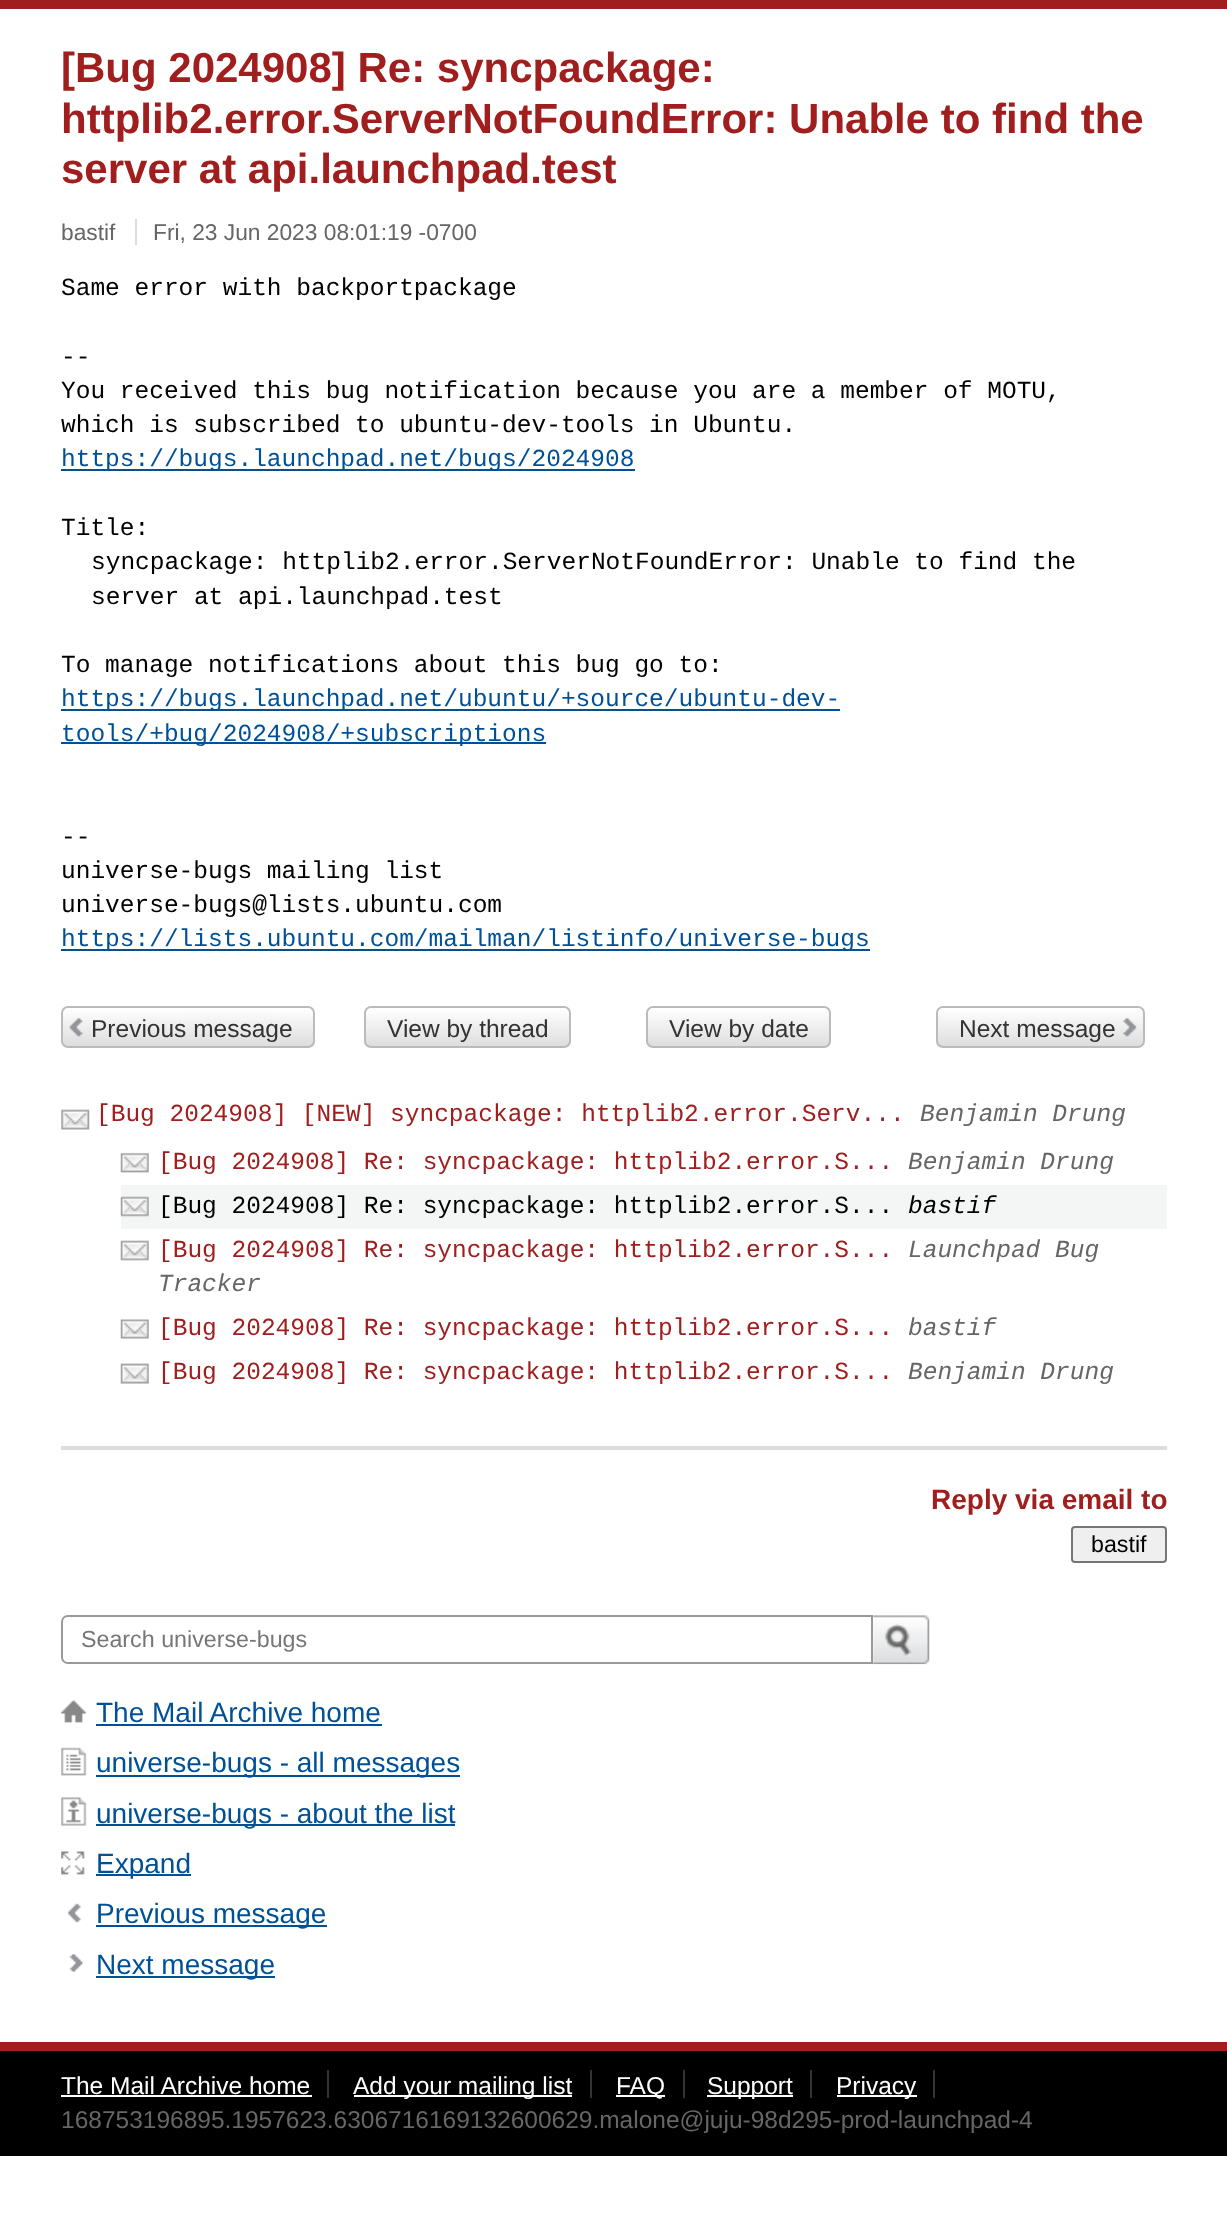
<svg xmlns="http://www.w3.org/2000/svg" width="1227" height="2232">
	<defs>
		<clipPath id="clip1"><rect x="364" y="1006" width="207" height="42" rx="7" /></clipPath>
		<linearGradient id="g1" gradientUnits="userSpaceOnUse" x1="467" y1="1008" x2="467" y2="1047"><stop offset="0" stop-color="#FFFFFF" /><stop offset="1" stop-color="#DDDDDD" /></linearGradient>
		<clipPath id="clip2"><rect x="646" y="1006" width="185" height="42" rx="7" /></clipPath>
		<linearGradient id="g2" gradientUnits="userSpaceOnUse" x1="739" y1="1008" x2="739" y2="1047"><stop offset="0" stop-color="#FFFFFF" /><stop offset="1" stop-color="#DDDDDD" /></linearGradient>
	</defs>
	<rect width="100%" height="100%" fill="#FFFFFF" />
	<rect x="0" y="0" width="1227" height="9" fill="#A01E1E" />
	<g font-family="Liberation Sans" font-size="42" font-weight="700" fill="#A01E1E">
		<text x="61" y="82">[Bug 2024908] Re: syncpackage:</text>
		<text x="61" y="133">httplib2.error.ServerNotFoundError: Unable to find the</text>
		<text x="61" y="183">server at api.launchpad.test</text>
	</g>
	<text x="61" y="240" font-family="Liberation Sans" font-size="22.75" fill="#666666">bastif</text>
	<rect x="135" y="219" width="2" height="26" fill="#DDDDDD" />
	<text x="153" y="240" font-family="Liberation Sans" font-size="22.75" fill="#666666">Fri, 23 Jun 2023 08:01:19 -0700</text>
	<g font-family="Liberation Mono" font-size="24.5" fill="#000000">
		<text x="61" y="295">Same error with backportpackage</text>
		<text x="61" y="364">--</text>
		<text x="61" y="398">You received this bug notification because you are a member of MOTU,</text>
		<text x="61" y="432">which is subscribed to ubuntu-dev-tools in Ubuntu.</text>
	</g>
	<rect x="61" y="469" width="574" height="2" fill="#005096" />
	<text x="61" y="466" font-family="Liberation Mono" font-size="24.5" fill="#005096">https://bugs.launchpad.net/bugs/2024908</text>
	<g font-family="Liberation Mono" font-size="24.5" fill="#000000">
		<text x="61" y="535">Title:</text>
		<text x="91" y="569">syncpackage: httplib2.error.ServerNotFoundError: Unable to find the</text>
		<text x="91" y="604">server at api.launchpad.test</text>
		<text x="61" y="672">To manage notifications about this bug go to:</text>
	</g>
	<rect x="61" y="709" width="779" height="2" fill="#005096" />
	<text x="61" y="706" font-family="Liberation Mono" font-size="24.5" fill="#005096">https://bugs.launchpad.net/ubuntu/+source/ubuntu-dev-</text>
	<rect x="61" y="742" width="485" height="2" fill="#005096" />
	<text x="61" y="741" font-family="Liberation Mono" font-size="24.5" fill="#005096">tools/+bug/2024908/+subscriptions</text>
	<g font-family="Liberation Mono" font-size="24.5" fill="#000000">
		<text x="61" y="844">--</text>
		<text x="61" y="878">universe-bugs mailing list</text>
		<text x="61" y="912">universe-bugs@lists.ubuntu.com</text>
	</g>
	<rect x="61" y="949" width="809" height="2" fill="#005096" />
	<text x="61" y="946" font-family="Liberation Mono" font-size="24.5" fill="#005096">https://lists.ubuntu.com/mailman/listinfo/universe-bugs</text>
	<image x="61" y="1006" width="254" height="42" href="assets/img1.png" />
	<rect x="62" y="1007" width="252" height="40" rx="6" fill="none" stroke="#BBBBBB" stroke-width="2" />
	<text x="91" y="1037" font-family="Liberation Sans" font-size="24.5" fill="#333333">Previous message</text>
	<g clip-path="url(#clip1)">
		<rect x="364" y="1008" width="207" height="39" fill="url(#g1)" />
	</g>
	<rect x="365" y="1007" width="205" height="40" rx="6" fill="none" stroke="#BBBBBB" stroke-width="2" />
	<text x="387" y="1037" font-family="Liberation Sans" font-size="24.5" fill="#333333">View by thread</text>
	<g clip-path="url(#clip2)">
		<rect x="646" y="1008" width="185" height="39" fill="url(#g2)" />
	</g>
	<rect x="647" y="1007" width="183" height="40" rx="6" fill="none" stroke="#BBBBBB" stroke-width="2" />
	<text x="669" y="1037" font-family="Liberation Sans" font-size="24.5" fill="#333333">View by date</text>
	<image x="936" y="1006" width="208" height="42" href="assets/img2.png" />
	<rect x="937" y="1007" width="207" height="40" rx="6" fill="none" stroke="#BBBBBB" stroke-width="2" />
	<text x="959" y="1037" font-family="Liberation Sans" font-size="24.5" fill="#333333">Next message</text>
	<image x="61" y="1109" width="29" height="21" href="assets/img3.png" />
	<text x="96" y="1121" font-family="Liberation Mono" font-size="24.5" fill="#A01E1E">[Bug 2024908] [NEW] syncpackage: httplib2.error.Serv...</text>
	<text x="920" y="1121" font-family="Liberation Mono" font-size="24.5" font-style="italic" fill="#666666">Benjamin Drung</text>
	<image x="120" y="1152" width="29" height="21" href="assets/img4.png" />
	<text x="158" y="1169" font-family="Liberation Mono" font-size="24.5" fill="#A01E1E">[Bug 2024908] Re: syncpackage: httplib2.error.S...</text>
	<text x="908" y="1169" font-family="Liberation Mono" font-size="24.5" font-style="italic" fill="#666666">Benjamin Drung</text>
	<rect x="121" y="1185" width="1046" height="44" fill="#F4F5F5" />
	<image x="120" y="1196" width="29" height="21" href="assets/img5.png" />
	<text x="158" y="1213" font-family="Liberation Mono" font-size="24.5" fill="#000000">[Bug 2024908] Re: syncpackage: httplib2.error.S...</text>
	<text x="908" y="1213" font-family="Liberation Mono" font-size="24.5" font-style="italic" fill="#000000">bastif</text>
	<image x="120" y="1240" width="29" height="21" href="assets/img6.png" />
	<text x="158" y="1257" font-family="Liberation Mono" font-size="24.5" fill="#A01E1E">[Bug 2024908] Re: syncpackage: httplib2.error.S...</text>
	<g font-family="Liberation Mono" font-size="24.5" font-style="italic" fill="#666666">
		<text x="908" y="1257">Launchpad Bug</text>
		<text x="158" y="1291">Tracker</text>
	</g>
	<image x="120" y="1319" width="29" height="20" href="assets/img7.png" />
	<text x="158" y="1335" font-family="Liberation Mono" font-size="24.5" fill="#A01E1E">[Bug 2024908] Re: syncpackage: httplib2.error.S...</text>
	<text x="908" y="1335" font-family="Liberation Mono" font-size="24.5" font-style="italic" fill="#666666">bastif</text>
	<image x="120" y="1363" width="29" height="21" href="assets/img8.png" />
	<text x="158" y="1379" font-family="Liberation Mono" font-size="24.5" fill="#A01E1E">[Bug 2024908] Re: syncpackage: httplib2.error.S...</text>
	<text x="908" y="1379" font-family="Liberation Mono" font-size="24.5" font-style="italic" fill="#666666">Benjamin Drung</text>
	<rect x="61" y="1446" width="1106" height="4" fill="#DDDDDD" />
	<text x="931" y="1509" font-family="Liberation Sans" font-size="28" font-weight="700" fill="#A01E1E">Reply via email to</text>
	<rect x="1072" y="1527" width="94" height="35" rx="3" fill="#EFEFEF" stroke="#767676" stroke-width="2" />
	<text x="1091" y="1552" font-family="Liberation Sans" font-size="23.25" fill="#000000">bastif</text>
	<path d="M68 1616H872V1663H68C64.5 1663 62 1660.5 62 1657V1622C62 1618.5 64.5 1616 68 1616Z" fill="none" stroke="#999999" stroke-width="2" />
	<text x="81" y="1647" font-family="Liberation Sans" font-size="23.25" fill="#777777">Search universe-bugs</text>
	<image x="873" y="1615" width="57" height="50" href="assets/img9.png" />
	<image x="61" y="1700" width="26" height="23" href="assets/img10.png" />
	<text x="96" y="1722" font-family="Liberation Sans" font-size="28" fill="#005096">The Mail Archive home</text>
	<rect x="96" y="1724" width="286" height="2" fill="#005096" />
	<image x="61" y="1747" width="26" height="29" href="assets/img11.png" />
	<rect x="96" y="1775" width="364" height="2" fill="#005096" />
	<text x="96" y="1772" font-family="Liberation Sans" font-size="28" fill="#005096">universe-bugs - all messages</text>
	<image x="61" y="1797" width="26" height="29" href="assets/img12.png" />
	<rect x="96" y="1824" width="359" height="2" fill="#005096" />
	<text x="96" y="1823" font-family="Liberation Sans" font-size="28" fill="#005096">universe-bugs - about the list</text>
	<image x="61" y="1851" width="24" height="24" href="assets/img13.png" />
	<rect x="96" y="1874" width="95" height="2" fill="#005096" />
	<text x="96" y="1873" font-family="Liberation Sans" font-size="28" fill="#005096">Expand</text>
	<image x="67" y="1903" width="14" height="20" href="assets/img14.png" />
	<rect x="96" y="1925" width="231" height="2" fill="#005096" />
	<text x="96" y="1923" font-family="Liberation Sans" font-size="28" fill="#005096">Previous message</text>
	<image x="69" y="1954" width="14" height="18" href="assets/img15.png" />
	<rect x="96" y="1976" width="179" height="2" fill="#005096" />
	<text x="96" y="1974" font-family="Liberation Sans" font-size="28" fill="#005096">Next message</text>
	<rect x="0" y="2051" width="1227" height="105" fill="#000000" />
	<rect x="0" y="2042" width="1227" height="9" fill="#A01E1E" />
	<text x="61" y="2094" font-family="Liberation Sans" font-size="24.5" fill="#FFFFFF">The Mail Archive home</text>
	<rect x="327" y="2070" width="2" height="28" fill="#333333" />
	<rect x="61" y="2095" width="251" height="2" fill="#FFFFFF" />
	<rect x="354" y="2095" width="218" height="2" fill="#FFFFFF" />
	<text x="353" y="2094" font-family="Liberation Sans" font-size="24.5" fill="#FFFFFF">Add your mailing list</text>
	<rect x="590" y="2070" width="2" height="28" fill="#333333" />
	<rect x="616" y="2095" width="49" height="2" fill="#FFFFFF" />
	<text x="616" y="2094" font-family="Liberation Sans" font-size="24.5" fill="#FFFFFF">FAQ</text>
	<rect x="683" y="2070" width="2" height="28" fill="#333333" />
	<rect x="707" y="2095" width="86" height="2" fill="#FFFFFF" />
	<text x="707" y="2094" font-family="Liberation Sans" font-size="24.5" fill="#FFFFFF">Support</text>
	<rect x="810" y="2070" width="2" height="28" fill="#333333" />
	<rect x="837" y="2095" width="80" height="2" fill="#FFFFFF" />
	<text x="836" y="2094" font-family="Liberation Sans" font-size="24.5" fill="#FFFFFF">Privacy</text>
	<rect x="933" y="2070" width="2" height="28" fill="#333333" />
	<text x="61" y="2128" font-family="Liberation Sans" font-size="24.5" fill="#666666">168753196895.1957623.6306716169132600629.malone@juju-98d295-prod-launchpad-4</text>
</svg>
